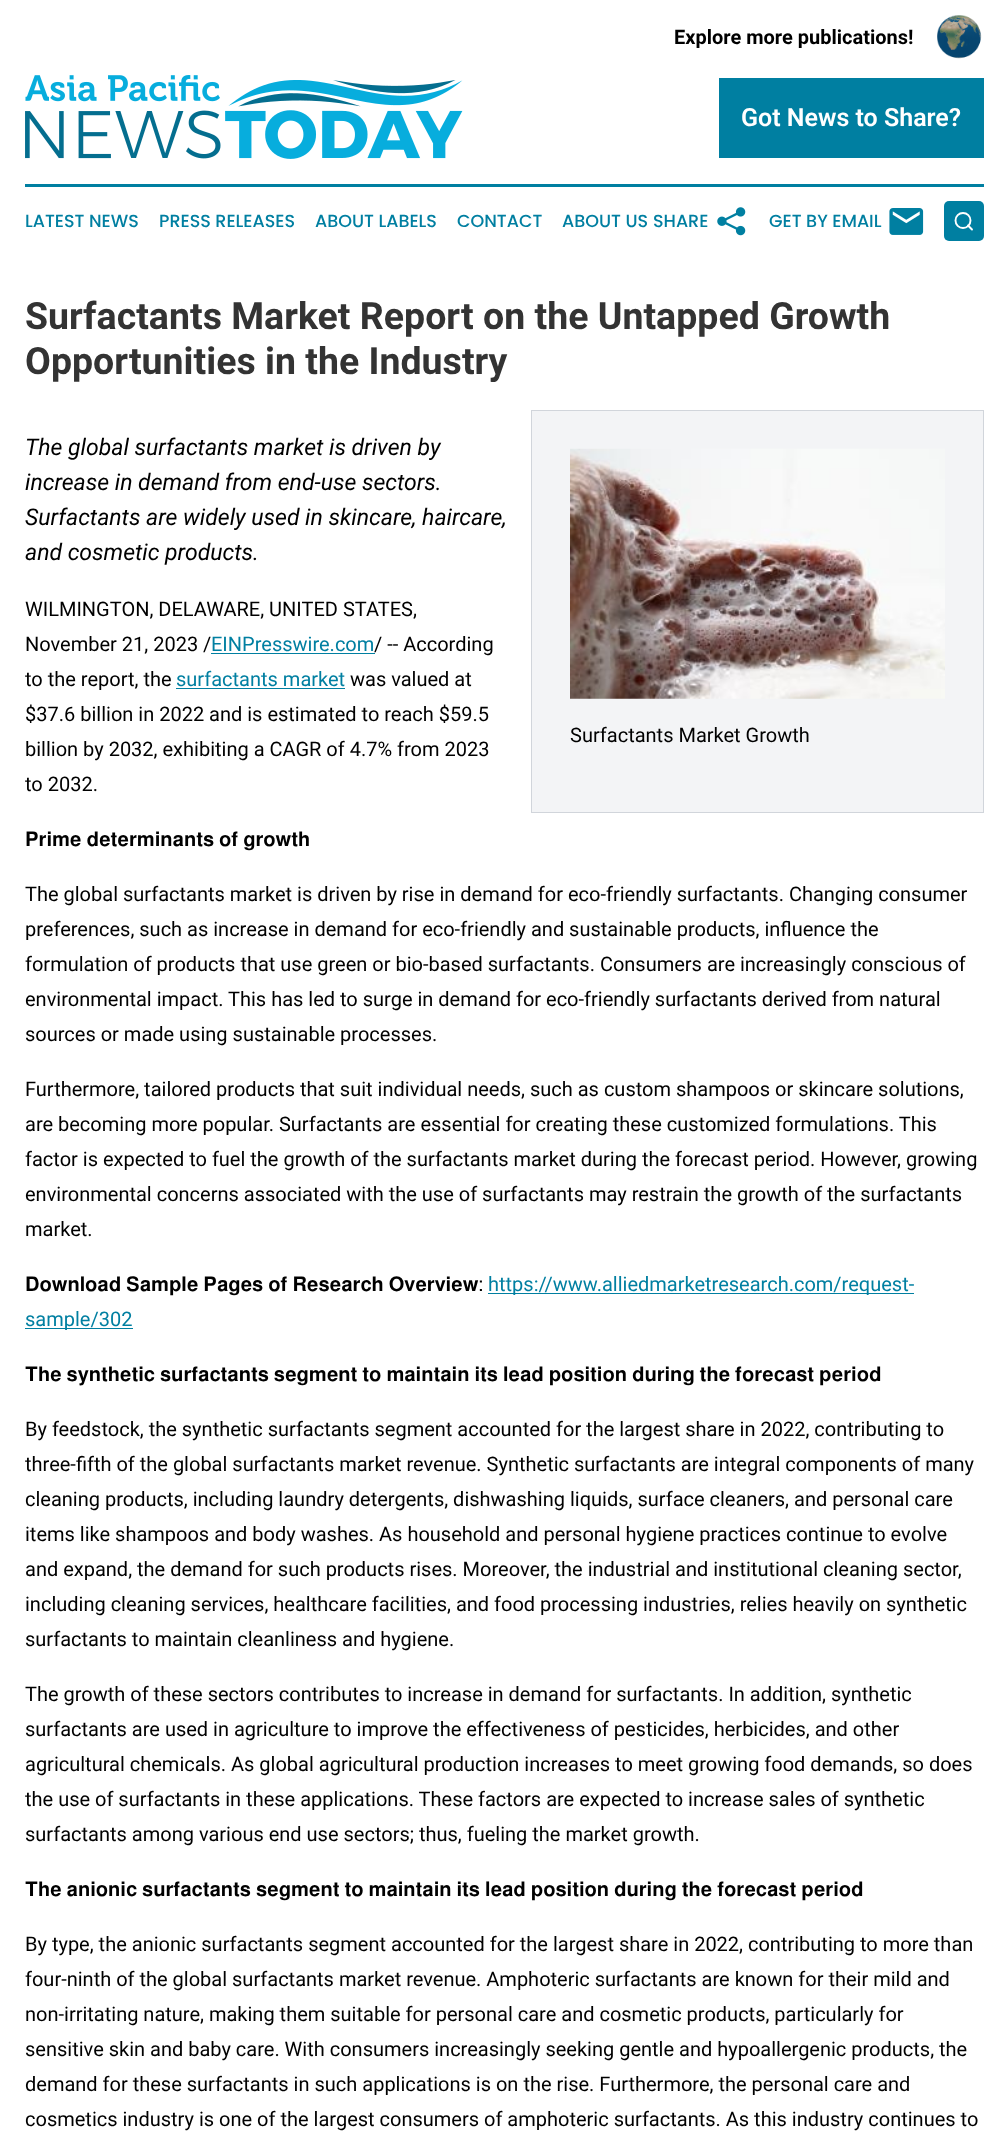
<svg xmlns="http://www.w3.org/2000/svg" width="1008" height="2155">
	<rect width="100%" height="100%" fill="#FFFFFF" />
	<text x="674" y="44" font-family="Roboto" font-size="20" font-weight="700" fill="#000000">Explore more publications!</text>
	<image x="937" y="15" width="45" height="44" href="assets/img1.png" />
	<image x="25" y="75" width="438" height="84" href="assets/img2.png" />
	<rect x="719" y="78" width="265" height="80" fill="#007FA1" />
	<text x="741" y="126" font-family="Roboto" font-size="25" font-weight="600" fill="#FFFFFF">Got News to Share?</text>
	<rect x="25" y="184" width="959" height="3" fill="#007FA1" />
	<g font-family="Poppins" font-size="17.5" font-weight="500" fill="#007FA1">
		<text x="25" y="227">LATEST NEWS</text>
		<text x="159" y="227">PRESS RELEASES</text>
		<text x="315" y="227">ABOUT LABELS</text>
		<text x="457" y="227">CONTACT</text>
		<text x="562" y="227">ABOUT US</text>
		<text x="653" y="227">SHARE</text>
	</g>
	<image x="717" y="207" width="29" height="29" href="assets/img3.png" />
	<text x="769" y="227" font-family="Poppins" font-size="17.5" font-weight="500" fill="#007FA1">GET BY EMAIL</text>
	<image x="889" y="208" width="35" height="27" href="assets/img4.png" />
	<rect x="944" y="201" width="40" height="40" rx="5" fill="#007FA1" />
	<circle cx="963" cy="220.5" r="7.5" fill="none" stroke="#FFFFFF" stroke-width="1.9" />
	<path d="M972 229.5L968 225.5" fill="none" stroke="#FFFFFF" stroke-width="1.9" stroke-linecap="round" stroke-linejoin="round" />
	<g font-family="Roboto" font-size="37.5" font-weight="700" fill="#333333">
		<text x="25" y="329">Surfactants Market Report on the Untapped Growth</text>
		<text x="25" y="374">Opportunities in the Industry</text>
	</g>
	<g font-family="Roboto" font-size="23" font-style="italic" fill="#000000">
		<text x="25" y="455">The global surfactants market is driven by</text>
		<text x="25" y="490">increase in demand from end-use sectors.</text>
		<text x="25" y="525">Surfactants are widely used in skincare, haircare,</text>
		<text x="25" y="560">and cosmetic products.</text>
	</g>
	<g font-family="Roboto" font-size="20" fill="#000000">
		<text x="25" y="616">WILMINGTON, DELAWARE, UNITED STATES,</text>
		<text x="25" y="651">November 21, 2023 /</text>
	</g>
	<text x="211" y="651" font-family="Roboto" font-size="20" fill="#007FA1">EINPresswire.com</text>
	<rect x="211" y="653" width="164" height="1" fill="#007FA1" />
	<g font-family="Roboto" font-size="20" fill="#000000">
		<text x="374" y="651">/ -- According</text>
		<text x="25" y="686">to the report, the</text>
	</g>
	<text x="176" y="686" font-family="Roboto" font-size="20" fill="#007FA1">surfactants market</text>
	<rect x="176" y="688" width="169" height="1" fill="#007FA1" />
	<g font-family="Roboto" font-size="20" fill="#000000">
		<text x="350" y="686">was valued at</text>
		<text x="25" y="721">$37.6 billion in 2022 and is estimated to reach $59.5</text>
		<text x="25" y="756">billion by 2032, exhibiting a CAGR of 4.7% from 2023</text>
		<text x="25" y="791">to 2032.</text>
	</g>
	<rect x="531.5" y="410.5" width="452" height="402" fill="#F3F4F6" stroke="#D1D5DB" />
	<image x="570" y="448" width="375" height="251" href="assets/img5.png" />
	<text x="570" y="742" font-family="Roboto" font-size="20" fill="#000000">Surfactants Market Growth</text>
	<text x="25" y="846" font-family="FreeSans" font-size="20" fill="#000000">𝐏𝐫𝐢𝐦𝐞 𝐝𝐞𝐭𝐞𝐫𝐦𝐢𝐧𝐚𝐧𝐭𝐬 𝐨𝐟 𝐠𝐫𝐨𝐰𝐭𝐡</text>
	<g font-family="Roboto" font-size="20" fill="#000000">
		<text x="25" y="901">The global surfactants market is driven by rise in demand for eco-friendly surfactants. Changing consumer</text>
		<text x="25" y="936">preferences, such as increase in demand for eco-friendly and sustainable products, influence the</text>
		<text x="25" y="971">formulation of products that use green or bio-based surfactants. Consumers are increasingly conscious of</text>
		<text x="25" y="1006">environmental impact. This has led to surge in demand for eco-friendly surfactants derived from natural</text>
		<text x="25" y="1041">sources or made using sustainable processes.</text>
		<text x="25" y="1096">Furthermore, tailored products that suit individual needs, such as custom shampoos or skincare solutions,</text>
		<text x="25" y="1131">are becoming more popular. Surfactants are essential for creating these customized formulations. This</text>
		<text x="25" y="1166">factor is expected to fuel the growth of the surfactants market during the forecast period. However, growing</text>
		<text x="25" y="1201">environmental concerns associated with the use of surfactants may restrain the growth of the surfactants</text>
		<text x="25" y="1236">market.</text>
	</g>
	<text x="25" y="1291" font-family="FreeSans" font-size="20" fill="#000000">𝐃𝐨𝐰𝐧𝐥𝐨𝐚𝐝 𝐒𝐚𝐦𝐩𝐥𝐞 𝐏𝐚𝐠𝐞𝐬 𝐨𝐟 𝐑𝐞𝐬𝐞𝐚𝐫𝐜𝐡 𝐎𝐯𝐞𝐫𝐯𝐢𝐞𝐰:</text>
	<rect x="488" y="1293" width="426" height="1" fill="#007FA1" />
	<text x="488" y="1291" font-family="Roboto" font-size="20" fill="#007FA1">https://www.alliedmarketresearch.com/request-</text>
	<rect x="25" y="1328" width="108" height="1" fill="#007FA1" />
	<text x="25" y="1326" font-family="Roboto" font-size="20" fill="#007FA1">sample/302</text>
	<text x="25" y="1381" font-family="FreeSans" font-size="20" fill="#000000">𝐓𝐡𝐞 𝐬𝐲𝐧𝐭𝐡𝐞𝐭𝐢𝐜 𝐬𝐮𝐫𝐟𝐚𝐜𝐭𝐚𝐧𝐭𝐬 𝐬𝐞𝐠𝐦𝐞𝐧𝐭 𝐭𝐨 𝐦𝐚𝐢𝐧𝐭𝐚𝐢𝐧 𝐢𝐭𝐬 𝐥𝐞𝐚𝐝 𝐩𝐨𝐬𝐢𝐭𝐢𝐨𝐧 𝐝𝐮𝐫𝐢𝐧𝐠 𝐭𝐡𝐞 𝐟𝐨𝐫𝐞𝐜𝐚𝐬𝐭 𝐩𝐞𝐫𝐢𝐨𝐝</text>
	<g font-family="Roboto" font-size="20" fill="#000000">
		<text x="25" y="1436">By feedstock, the synthetic surfactants segment accounted for the largest share in 2022, contributing to</text>
		<text x="25" y="1471">three-fifth of the global surfactants market revenue. Synthetic surfactants are integral components of many</text>
		<text x="25" y="1506">cleaning products, including laundry detergents, dishwashing liquids, surface cleaners, and personal care</text>
		<text x="25" y="1541">items like shampoos and body washes. As household and personal hygiene practices continue to evolve</text>
		<text x="25" y="1576">and expand, the demand for such products rises. Moreover, the industrial and institutional cleaning sector,</text>
		<text x="25" y="1611">including cleaning services, healthcare facilities, and food processing industries, relies heavily on synthetic</text>
		<text x="25" y="1646">surfactants to maintain cleanliness and hygiene.</text>
		<text x="25" y="1701">The growth of these sectors contributes to increase in demand for surfactants. In addition, synthetic</text>
		<text x="25" y="1736">surfactants are used in agriculture to improve the effectiveness of pesticides, herbicides, and other</text>
		<text x="25" y="1771">agricultural chemicals. As global agricultural production increases to meet growing food demands, so does</text>
		<text x="25" y="1806">the use of surfactants in these applications. These factors are expected to increase sales of synthetic</text>
		<text x="25" y="1841">surfactants among various end use sectors; thus, fueling the market growth.</text>
	</g>
	<text x="25" y="1896" font-family="FreeSans" font-size="20" fill="#000000">𝐓𝐡𝐞 𝐚𝐧𝐢𝐨𝐧𝐢𝐜 𝐬𝐮𝐫𝐟𝐚𝐜𝐭𝐚𝐧𝐭𝐬 𝐬𝐞𝐠𝐦𝐞𝐧𝐭 𝐭𝐨 𝐦𝐚𝐢𝐧𝐭𝐚𝐢𝐧 𝐢𝐭𝐬 𝐥𝐞𝐚𝐝 𝐩𝐨𝐬𝐢𝐭𝐢𝐨𝐧 𝐝𝐮𝐫𝐢𝐧𝐠 𝐭𝐡𝐞 𝐟𝐨𝐫𝐞𝐜𝐚𝐬𝐭 𝐩𝐞𝐫𝐢𝐨𝐝</text>
	<g font-family="Roboto" font-size="20" fill="#000000">
		<text x="25" y="1951">By type, the anionic surfactants segment accounted for the largest share in 2022, contributing to more than</text>
		<text x="25" y="1986">four-ninth of the global surfactants market revenue. Amphoteric surfactants are known for their mild and</text>
		<text x="25" y="2021">non-irritating nature, making them suitable for personal care and cosmetic products, particularly for</text>
		<text x="25" y="2056">sensitive skin and baby care. With consumers increasingly seeking gentle and hypoallergenic products, the</text>
		<text x="25" y="2091">demand for these surfactants in such applications is on the rise. Furthermore, the personal care and</text>
		<text x="25" y="2126">cosmetics industry is one of the largest consumers of amphoteric surfactants. As this industry continues to</text>
	</g>
</svg>
